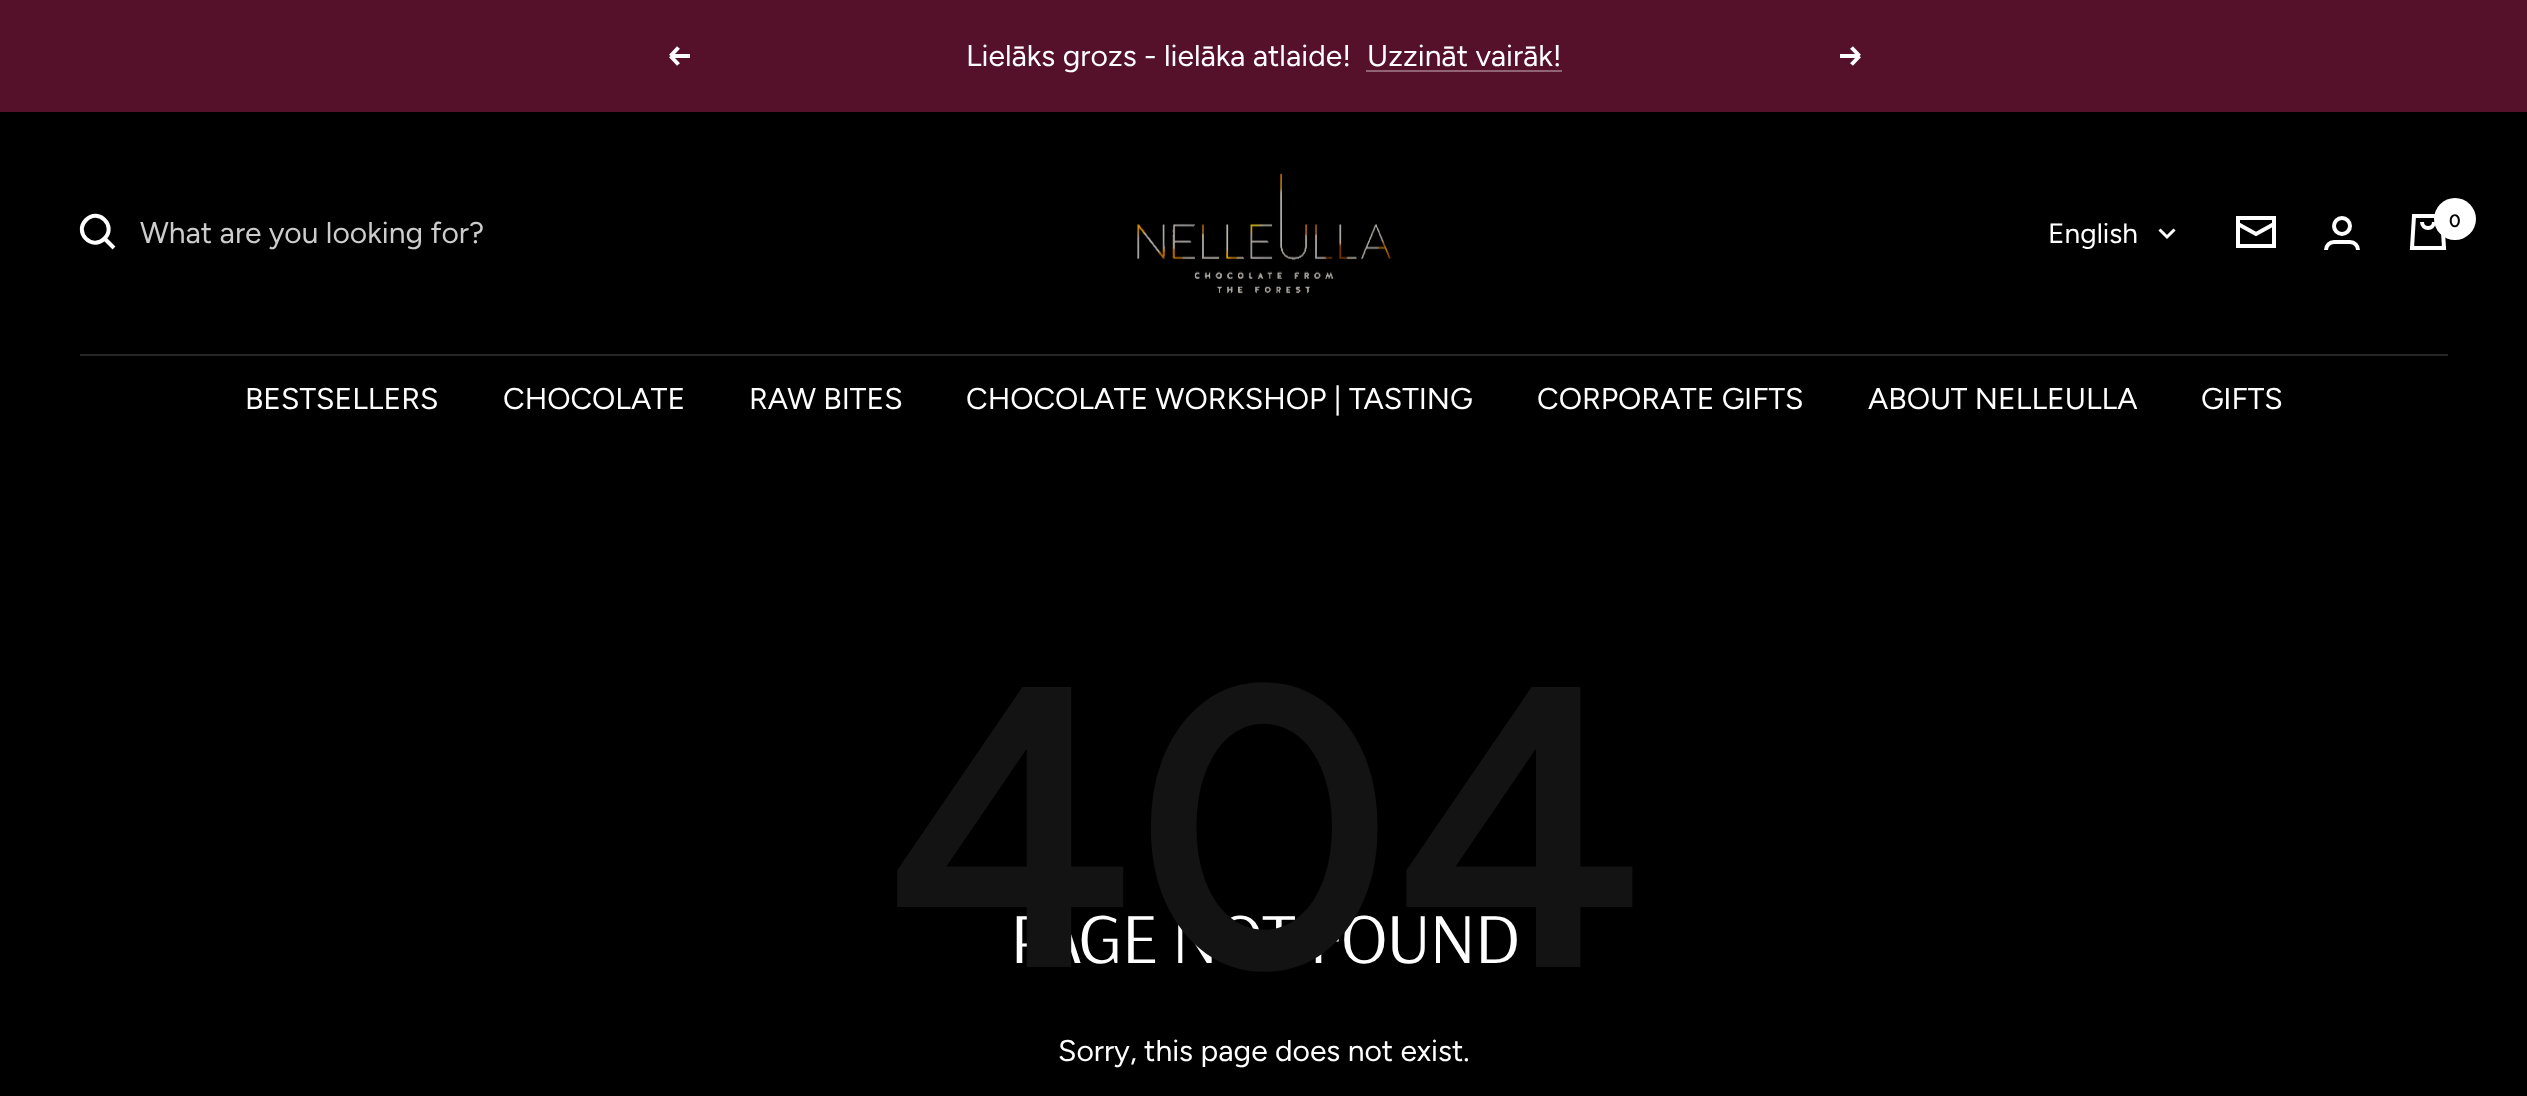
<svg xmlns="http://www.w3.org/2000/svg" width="2527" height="1096">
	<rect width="100%" height="100%" fill="#000000" />
	<rect x="0" y="0" width="2527" height="112" fill="#56112A" />
	<path d="M690 56H670.5M670.5 56L678.5 64.5M670.5 56L678.5 47.5" fill="none" stroke="#FFFFFF" stroke-width="4" />
	<g font-family="Figtree" font-size="30" fill="#FFFFFF">
		<text x="966" y="66">Lielāks grozs - lielāka atlaide!</text>
		<text x="1367" y="66">Uzzināt vairāk!</text>
	</g>
	<rect x="1366" y="70" width="196" height="2" fill="#916475" />
	<path d="M1840 56H1859.5M1859.5 56L1851.5 64.5M1859.5 56L1851.5 47.5" fill="none" stroke="#FFFFFF" stroke-width="4" />
	<path d="M104.5 238.5C117 226 98.5 207.5 86 220C73.5 232.5 92 251 104.5 238.5ZM104.5 238.5L114 248" fill="none" stroke="#FFFFFF" stroke-width="4" />
	<text x="140" y="243" font-family="Figtree" font-size="30" fill="#CCCCCC">What are you looking for?</text>
	<image x="1137" y="173" width="254" height="121" href="assets/img1.png" />
	<text x="2048" y="243" font-family="Figtree" font-size="28" fill="#FFFFFF">English</text>
	<path d="M2159.5 229.5L2167 237L2174.5 229.5" fill="none" stroke="#FFFFFF" stroke-width="3" />
	<path d="M2274 224L2256 234L2238 224M2238 218H2274V246H2238Z" fill="none" stroke="#FFFFFF" stroke-width="4" />
	<circle cx="2342" cy="226" r="8" fill="none" stroke="#FFFFFF" stroke-width="4" />
	<path d="M2326 250C2326 245.5 2329.5 242 2334 242H2350C2354.5 242 2358 245.5 2358 250" fill="none" stroke="#FFFFFF" stroke-width="4" />
	<path d="M2414 216H2442L2444 248H2412ZM2422 222C2422 230 2434 230 2434 222" fill="none" stroke="#FFFFFF" stroke-width="4" />
	<circle cx="2455" cy="219" r="21" fill="#FFFFFF" />
	<text x="2449" y="227" font-family="Figtree" font-size="18" font-weight="600" fill="#000000">0</text>
	<rect x="80" y="354" width="2368" height="2" fill="#262626" />
	<g font-family="Figtree" font-size="30" fill="#FFFFFF">
		<text x="245" y="409">BESTSELLERS</text>
		<text x="503" y="409">CHOCOLATE</text>
		<text x="749" y="409">RAW BITES</text>
		<text x="966" y="409">CHOCOLATE WORKSHOP | TASTING</text>
		<text x="1537" y="409">CORPORATE GIFTS</text>
		<text x="1868" y="409">ABOUT NELLEULLA</text>
		<text x="2201" y="409">GIFTS</text>
	</g>
	<text x="1010" y="963" font-family="Arsenal" font-size="72" letter-spacing="-1.6" fill="#FFFFFF">PAGE NOT FOUND</text>
	<text x="884" y="967" font-family="Figtree" font-size="400" font-weight="600" fill="#131313">404</text>
	<text x="1058" y="1061" font-family="Figtree" font-size="30" fill="#FFFFFF">Sorry, this page does not exist.</text>
</svg>
